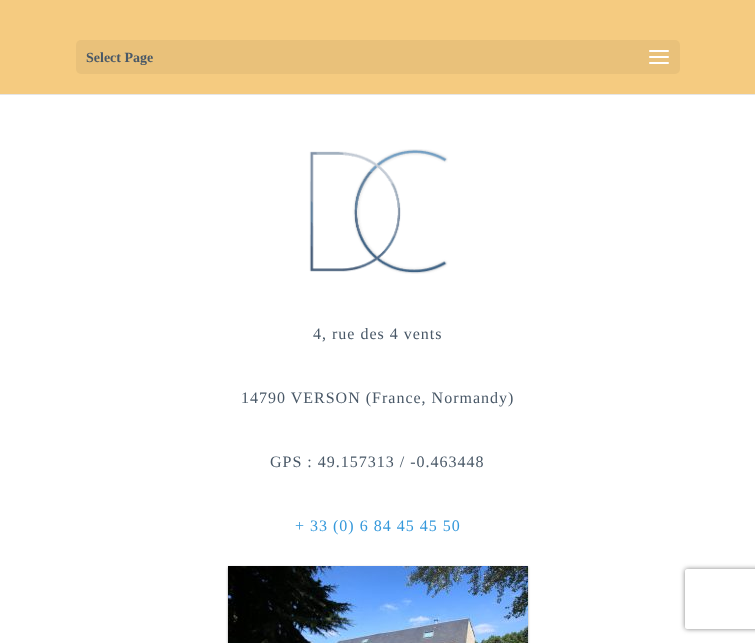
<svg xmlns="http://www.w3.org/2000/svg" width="755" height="643">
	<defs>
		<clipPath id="clip1"><path d="M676 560H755V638H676ZM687 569H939C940 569 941 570 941 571V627C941 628 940 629 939 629H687C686 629 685 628 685 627V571C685 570 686 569 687 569Z" clip-rule="evenodd" /></clipPath>
	</defs>
	<rect width="100%" height="100%" fill="#FFFFFF" />
	<rect x="0" y="94" width="755" height="1" fill="#E6E6E6" />
	<rect x="0" y="0" width="755" height="94" fill="#F5CB80" />
	<rect x="76" y="40" width="604" height="34" rx="5" fill="#E9C17A" />
	<text x="86" y="62" font-family="Liberation Serif" font-size="14" font-weight="700" fill="#495867">Select Page</text>
	<image x="649" y="50" width="20" height="14" href="assets/img1.png" />
	<image x="309" y="149" width="139" height="125" href="assets/img2.png" />
	<g font-family="Liberation Serif" font-size="16" letter-spacing="1" fill="#495867">
		<text x="313" y="339">4, rue des 4 vents</text>
		<text x="241" y="403">14790 VERSON (France, Normandy)</text>
		<text x="270" y="467">GPS : 49.157313 / -0.463448</text>
	</g>
	<text x="295" y="531" font-family="Liberation Serif" font-size="16" letter-spacing="1" fill="#3498DB">+ 33 (0) 6 84 45 45 50</text>
	<rect x="228" y="567" width="300" height="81" fill="#000000" fill-opacity="0.12" filter="blur(1.5px)" />
	<rect x="228" y="567" width="300" height="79" fill="#000000" fill-opacity="0.24" filter="blur(1px)" />
	<image x="228" y="566" width="300" height="77" href="assets/img3.png" />
	<g clip-path="url(#clip1)">
		<rect x="685" y="569" width="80" height="60" rx="2" fill="#808080" filter="blur(2.5px)" />
	</g>
</svg>
